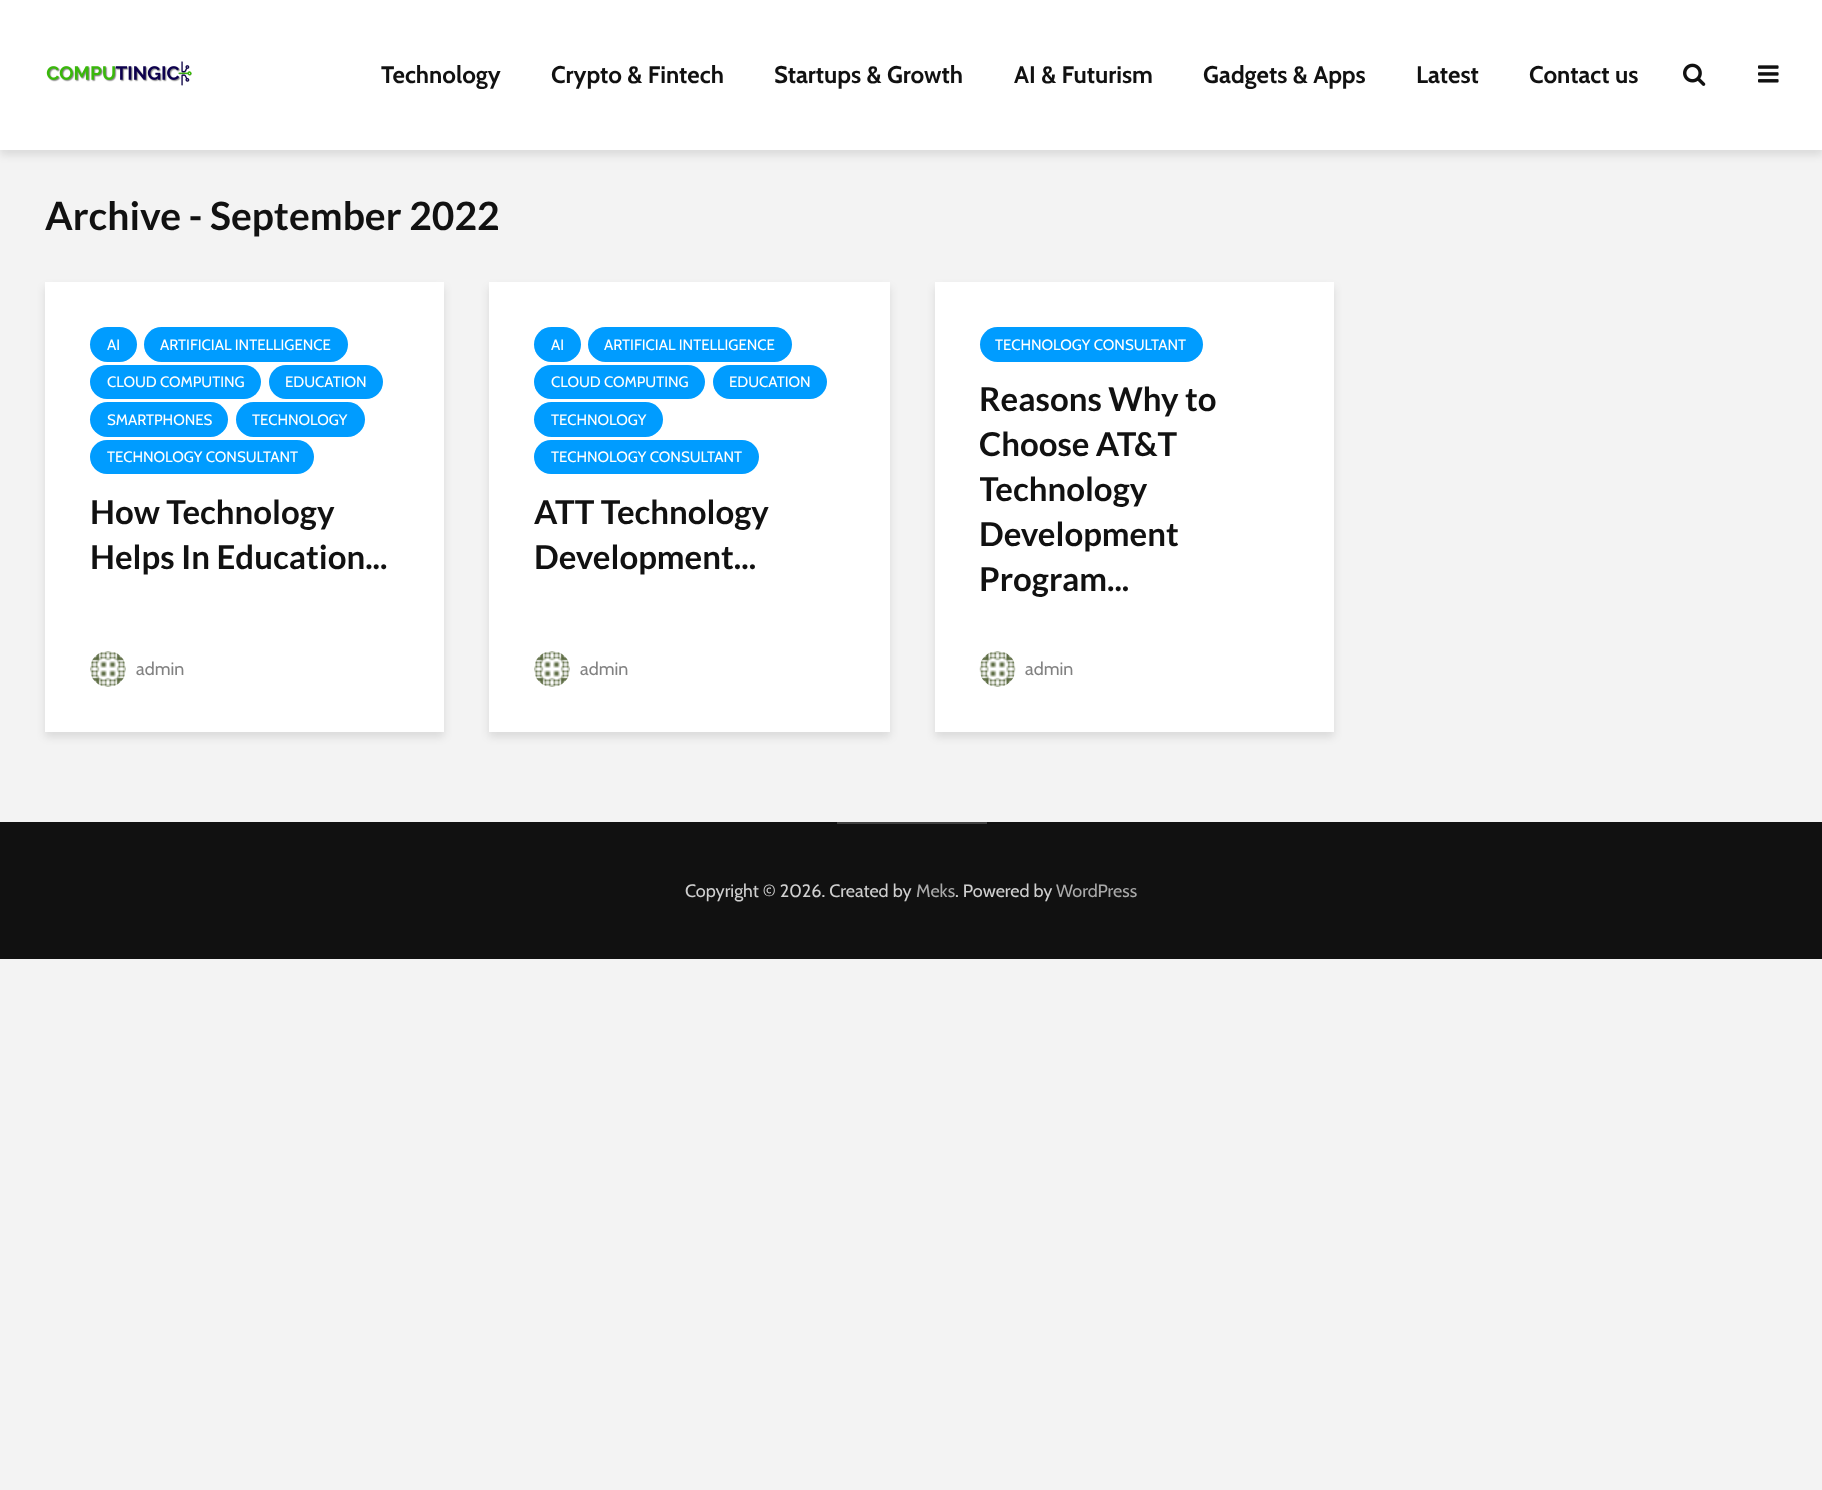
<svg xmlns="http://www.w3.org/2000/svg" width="1822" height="1490">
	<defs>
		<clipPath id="clip1"><rect x="980" y="327" width="309" height="296" /></clipPath>
	</defs>
	<rect width="100%" height="100%" fill="#F3F3F3" />
	<rect x="0" y="5" width="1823" height="150" fill="#000101" fill-opacity="0.1" filter="blur(4px)" />
	<rect x="0" y="0" width="1822" height="150" fill="#FFFFFF" />
	<image x="46" y="61" width="146" height="25" href="assets/img1.png" />
	<g font-family="Cabin" font-size="24" font-weight="700" fill="#111111">
		<text x="381" y="83">Technology</text>
		<text x="551" y="83">Crypto &amp; Fintech</text>
		<text x="774" y="83">Startups &amp; Growth</text>
		<text x="1014" y="83">AI &amp; Futurism</text>
		<text x="1203" y="83">Gadgets &amp; Apps</text>
		<text x="1416" y="83">Latest</text>
		<text x="1529" y="83">Contact us</text>
	</g>
	<image x="1683" y="63" width="23" height="23" href="assets/img2.png" />
	<image x="1758" y="65" width="21" height="18" href="assets/img3.png" />
	<text x="45" y="230" font-family="Lato" font-size="39" font-weight="700" fill="#111111">Archive - September 2022</text>
	<rect x="45" y="287" width="399" height="450" fill="#000101" fill-opacity="0.1" filter="blur(4px)" />
	<rect x="45" y="282" width="399" height="450" fill="#FFFFFF" />
	<rect x="90" y="327" width="47" height="35" rx="17.5" fill="#009CFF" />
	<text x="107" y="350" font-family="Cabin" font-size="15" fill="#FFFFFF">AI</text>
	<rect x="144" y="327" width="204" height="35" rx="17.5" fill="#009CFF" />
	<text x="160" y="350" font-family="Cabin" font-size="15" fill="#FFFFFF">ARTIFICIAL INTELLIGENCE</text>
	<rect x="90" y="365" width="171" height="34" rx="17" fill="#009CFF" />
	<text x="107" y="387" font-family="Cabin" font-size="15" fill="#FFFFFF">CLOUD COMPUTING</text>
	<rect x="269" y="365" width="114" height="34" rx="17" fill="#009CFF" />
	<text x="285" y="387" font-family="Cabin" font-size="15" fill="#FFFFFF">EDUCATION</text>
	<rect x="90" y="402" width="138" height="35" rx="17.5" fill="#009CFF" />
	<text x="107" y="425" font-family="Cabin" font-size="15" fill="#FFFFFF">SMARTPHONES</text>
	<rect x="236" y="402" width="129" height="35" rx="17.5" fill="#009CFF" />
	<text x="252" y="425" font-family="Cabin" font-size="15" fill="#FFFFFF">TECHNOLOGY</text>
	<rect x="90" y="440" width="224" height="34" rx="17" fill="#009CFF" />
	<text x="107" y="462" font-family="Cabin" font-size="15" fill="#FFFFFF">TECHNOLOGY CONSULTANT</text>
	<g font-family="Lato" font-size="33" font-weight="700" fill="#111111">
		<text x="90" y="524">How Technology</text>
		<text x="90" y="569">Helps In Education...</text>
	</g>
	<image x="90" y="651" width="36" height="36" href="assets/img4.png" />
	<text x="136" y="675" font-family="Cabin" font-size="18" fill="#818181">admin</text>
	<rect x="489" y="287" width="401" height="450" fill="#000101" fill-opacity="0.1" filter="blur(4px)" />
	<rect x="489" y="282" width="401" height="450" fill="#FFFFFF" />
	<rect x="534" y="327" width="47" height="35" rx="17.5" fill="#009CFF" />
	<text x="551" y="350" font-family="Cabin" font-size="15" fill="#FFFFFF">AI</text>
	<rect x="588" y="327" width="204" height="35" rx="17.5" fill="#009CFF" />
	<text x="604" y="350" font-family="Cabin" font-size="15" fill="#FFFFFF">ARTIFICIAL INTELLIGENCE</text>
	<rect x="534" y="365" width="171" height="34" rx="17" fill="#009CFF" />
	<text x="551" y="387" font-family="Cabin" font-size="15" fill="#FFFFFF">CLOUD COMPUTING</text>
	<rect x="713" y="365" width="114" height="34" rx="17" fill="#009CFF" />
	<text x="729" y="387" font-family="Cabin" font-size="15" fill="#FFFFFF">EDUCATION</text>
	<rect x="534" y="402" width="129" height="35" rx="17.5" fill="#009CFF" />
	<text x="551" y="425" font-family="Cabin" font-size="15" fill="#FFFFFF">TECHNOLOGY</text>
	<rect x="534" y="440" width="225" height="34" rx="17" fill="#009CFF" />
	<text x="551" y="462" font-family="Cabin" font-size="15" fill="#FFFFFF">TECHNOLOGY CONSULTANT</text>
	<g font-family="Lato" font-size="33" font-weight="700" fill="#111111">
		<text x="534" y="524">ATT Technology</text>
		<text x="534" y="569">Development...</text>
	</g>
	<image x="534" y="651" width="36" height="36" href="assets/img5.png" />
	<text x="580" y="675" font-family="Cabin" font-size="18" fill="#818181">admin</text>
	<rect x="935" y="287" width="399" height="450" fill="#000101" fill-opacity="0.1" filter="blur(4px)" />
	<rect x="935" y="282" width="399" height="450" fill="#FFFFFF" />
	<rect x="980" y="327" width="223" height="35" rx="17.5" fill="#009CFF" />
	<text x="995" y="350" font-family="Cabin" font-size="15" fill="#FFFFFF">TECHNOLOGY CONSULTANT</text>
	<text x="979" y="411" font-family="Lato" font-size="33" font-weight="700" fill="#111111">Reasons Why to</text>
	<g clip-path="url(#clip1)">
		<g font-family="Lato" font-size="33" font-weight="700" fill="#111111">
			<text x="979" y="456">Choose AT&amp;T</text>
			<text x="979" y="501">Technology</text>
		</g>
	</g>
	<g font-family="Lato" font-size="33" font-weight="700" fill="#111111">
		<text x="979" y="546">Development</text>
		<text x="979" y="591">Program...</text>
	</g>
	<image x="979" y="651" width="37" height="36" href="assets/img6.png" />
	<text x="1025" y="675" font-family="Cabin" font-size="18" fill="#818181">admin</text>
	<rect x="0" y="822" width="1822" height="137" fill="#111111" />
	<rect x="837" y="822" width="150" height="2" fill="#414141" />
	<text x="685" y="897" font-family="Cabin" font-size="18" fill="#CFCFCF">Copyright © 2026. Created by</text>
	<text x="916" y="897" font-family="Cabin" font-size="18" fill="#A9A9A9">Meks</text>
	<text x="955" y="897" font-family="Cabin" font-size="18" fill="#CFCFCF">. Powered by</text>
	<text x="1056" y="897" font-family="Cabin" font-size="18" fill="#A9A9A9">WordPress</text>
</svg>
